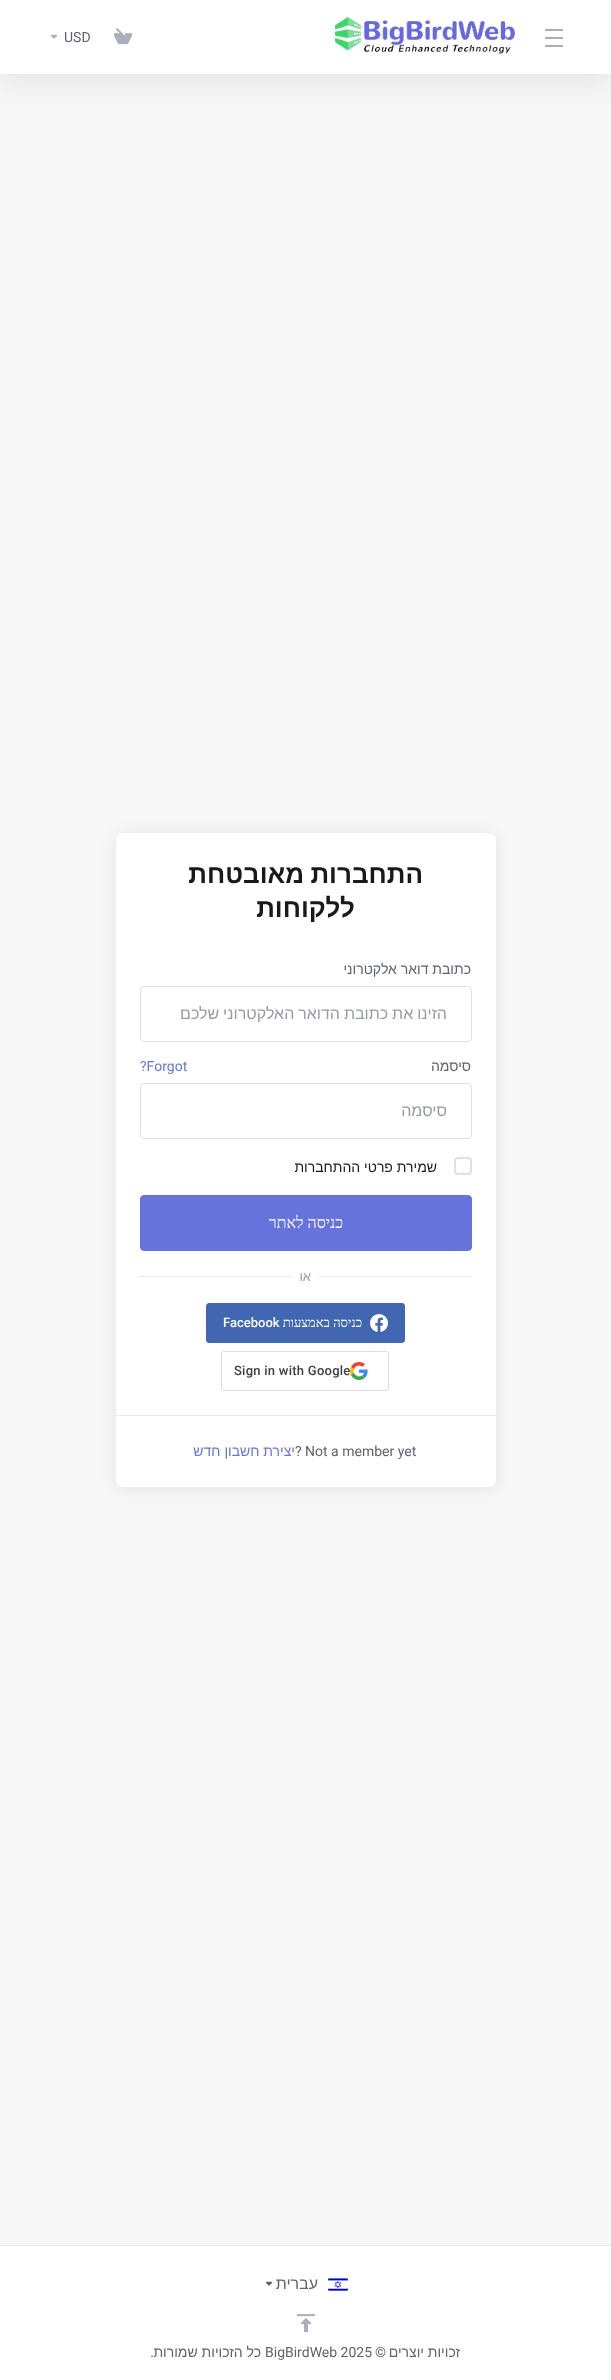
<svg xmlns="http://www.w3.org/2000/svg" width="611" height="2380">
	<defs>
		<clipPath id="clip1"><rect x="165" y="1004" width="282" height="19" /></clipPath>
	</defs>
	<rect width="100%" height="100%" fill="#F7F7F8" />
	<rect x="0" y="8" width="611" height="74" fill="#000000" fill-opacity="0.08" filter="blur(16px)" />
	<rect x="0" y="0" width="611" height="74" fill="#FFFFFF" />
	<rect x="545" y="29" width="18" height="2" fill="#ACAFB9" />
	<rect x="545" y="37" width="18" height="2" fill="#ACAFB9" />
	<rect x="545" y="45" width="18" height="2" fill="#ACAFB9" />
	<image x="335" y="17" width="180" height="37" href="assets/img1.png" />
	<image x="114" y="28" width="18" height="17" href="assets/img2.png" />
	<text x="64" y="42" font-family="Roboto" font-size="14" fill="#5E636E">USD</text>
	<image x="51" y="34" width="6" height="5" href="assets/img3.png" />
	<rect x="116" y="835" width="380" height="654" rx="6" fill="#000000" fill-opacity="0.08" filter="blur(8px)" />
	<rect x="116" y="833" width="380" height="654" rx="6" fill="#000000" fill-opacity="0.1" filter="blur(0.5px)" />
	<rect x="116" y="833" width="380" height="654" rx="6" fill="#FFFFFF" />
	<g font-family="Liberation Sans" font-size="26" font-weight="700" direction="rtl" fill="#17191C">
		<text x="423" y="883" word-spacing="-1">התחברות מאובטחת</text>
		<text x="355" y="917">ללקוחות</text>
	</g>
	<text x="471" y="974" font-family="Liberation Sans" font-size="14" direction="rtl" fill="#5E636E">כתובת דואר אלקטרוני</text>
	<rect x="140.5" y="986.5" width="331" height="55" rx="3.5" fill="none" stroke="#DEE0E3" />
	<g clip-path="url(#clip1)">
		<text x="447" y="1019" word-spacing="-0.5" font-family="Liberation Sans" font-size="16" direction="rtl" fill="#979BA4">הזינו את כתובת הדואר האלקטרוני שלכם</text>
	</g>
	<text x="471" y="1071" font-family="Liberation Sans" font-size="14" direction="rtl" fill="#5E636E">סיסמה</text>
	<text x="140" y="1071" font-family="Roboto" font-size="14" fill="#6773DD">?Forgot</text>
	<rect x="140.5" y="1083.5" width="331" height="55" rx="3.5" fill="none" stroke="#DEE0E3" />
	<text x="447" y="1116" font-family="Liberation Sans" font-size="16" direction="rtl" fill="#979BA4">סיסמה</text>
	<rect x="455" y="1158" width="16" height="16" rx="3" fill="none" stroke="#DEE0E3" stroke-width="2" />
	<text x="437" y="1172" font-family="Liberation Sans" font-size="14" direction="rtl" fill="#17191C">שמירת פרטי ההתחברות</text>
	<rect x="140.5" y="1195.5" width="331" height="55" rx="3.5" fill="#6773DD" stroke="#6773DD" />
	<text x="343" y="1228" font-family="Liberation Serif" font-size="16" direction="rtl" fill="#FFFFFF">כניסה לאתר</text>
	<rect x="319" y="1276" width="153" height="1" fill="#E9EAEC" />
	<text x="311" y="1281" font-family="Liberation Sans" font-size="13" direction="rtl" fill="#979BA4">או</text>
	<rect x="139" y="1276" width="153" height="1" fill="#E9EAEC" />
	<rect x="206.5" y="1303.5" width="198" height="39" rx="2.5" fill="#4267B2" stroke="#4267B2" />
	<image x="370" y="1314" width="18" height="18" href="assets/img4.png" />
	<text x="362" y="1327" font-family="Liberation Serif" font-size="13" direction="rtl" fill="#FFFFFF">כניסה באמצעות</text>
	<text x="223" y="1327" font-family="Roboto" font-size="13" font-weight="500" fill="#FFFFFF">Facebook</text>
	<rect x="221.5" y="1351.5" width="167" height="39" rx="2.5" fill="none" stroke="#DADCE0" />
	<image x="350" y="1362" width="18" height="18" href="assets/img5.png" />
	<text x="234" y="1375" font-family="Roboto" font-size="13" font-weight="500" letter-spacing="0.25" fill="#3C4043">Sign in with Google</text>
	<rect x="116" y="1415" width="380" height="1" fill="#E9EAEC" />
	<text x="295" y="1456" font-family="Roboto" font-size="14" fill="#5E636E">? Not a member yet</text>
	<text x="295" y="1456" font-family="Liberation Sans" font-size="14" direction="rtl" fill="#6773DD">יצירת חשבון חדש</text>
	<rect x="0" y="2246" width="611" height="134" fill="#FFFFFF" />
	<rect x="0" y="2245" width="611" height="1" fill="#E9EAEC" />
	<image x="328" y="2278" width="20" height="13" href="assets/img6.png" />
	<text x="318" y="2289" font-family="Liberation Sans" font-size="16" direction="rtl" fill="#5E636E">עברית</text>
	<image x="266" y="2281" width="6" height="5" href="assets/img7.png" />
	<image x="297" y="2314" width="18" height="19" href="assets/img8.png" />
	<text x="460" y="2357" font-family="Liberation Sans" font-size="14" direction="rtl" fill="#5E636E">זכויות יוצרים</text>
	<text x="386" y="2357" font-family="Roboto" font-size="14" direction="rtl" fill="#5E636E">©</text>
	<text x="265" y="2357" font-family="Roboto" font-size="14" fill="#5E636E">BigBirdWeb 2025</text>
	<text x="261" y="2357" font-family="Liberation Sans" font-size="14" direction="rtl" fill="#5E636E">כל הזכויות שמורות</text>
	<text x="154" y="2357" font-family="Roboto" font-size="14" direction="rtl" fill="#5E636E">.</text>
</svg>
